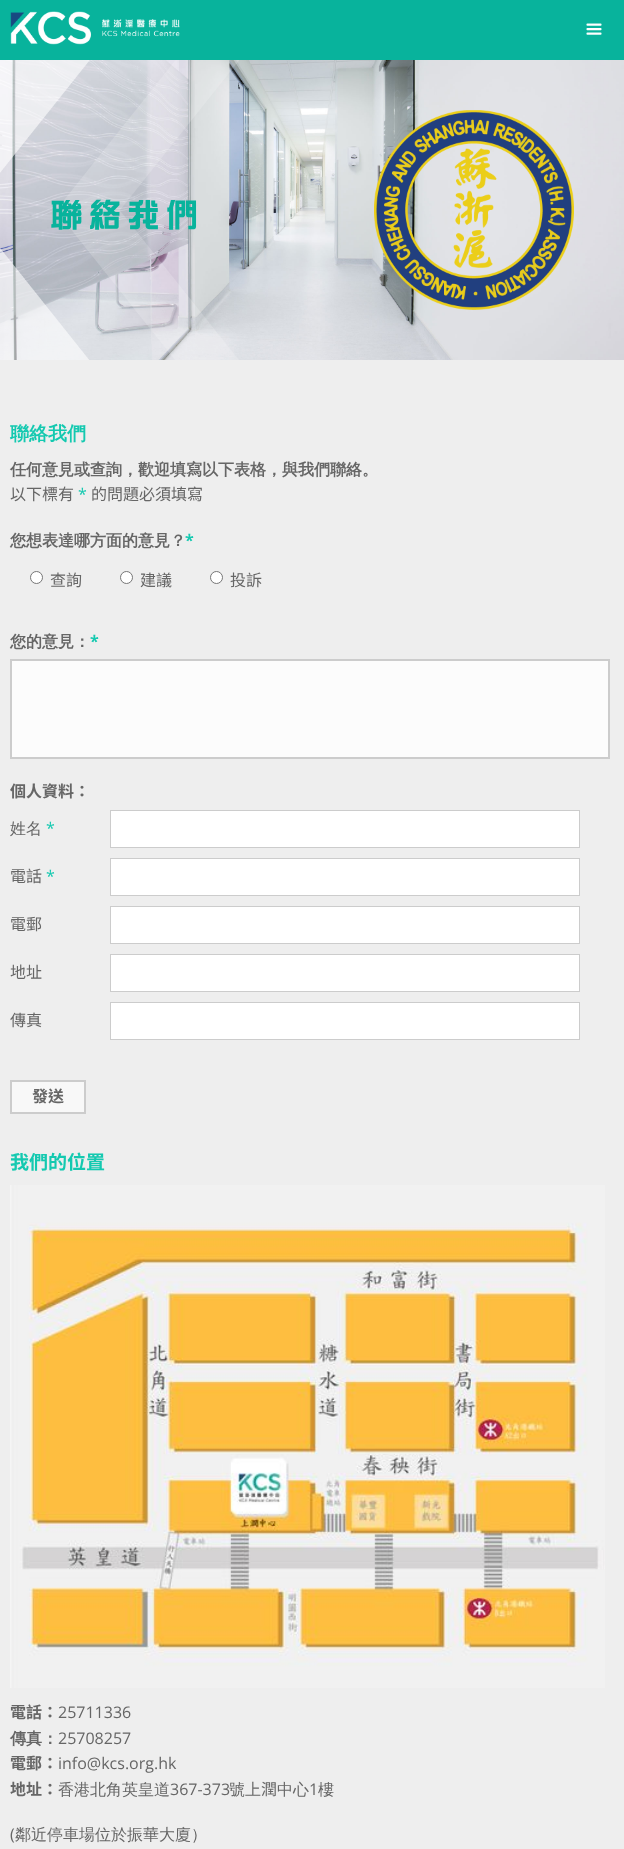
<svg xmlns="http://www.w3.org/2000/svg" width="624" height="1849">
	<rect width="100%" height="100%" fill="#EEEEEE" />
	<rect x="0" y="0" width="624" height="60" fill="#08B39C" />
	<image x="10" y="11" width="170" height="34" href="assets/img1.png" />
	<image x="586" y="23" width="16" height="12" href="assets/img2.png" />
	<image x="0" y="60" width="624" height="300" href="assets/img3.png" />
	<image x="0" y="60" width="239" height="300" href="assets/img4.png" />
	<text x="50" y="225" font-family="'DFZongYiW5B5'" font-size="32" font-weight="700" letter-spacing="6.5" fill="#08B39C">聯絡我們</text>
	<image x="374" y="110" width="200" height="200" href="assets/img5.png" />
	<text x="10" y="440" font-family="WenQuanYi Zen Hei" font-size="19" font-weight="700" fill="#14C9B0">聯絡我們</text>
	<text x="10" y="475" font-family="WenQuanYi Zen Hei" font-size="16" font-weight="700" fill="#666666">任何意見或查詢，歡迎填寫以下表格，與我們聯絡。</text>
	<text x="10" y="500" font-family="Noto Sans TC" font-size="16" fill="#666666">以下標有</text>
	<text x="78" y="500" font-family="Open Sans" font-size="16" fill="#14C9B0">*</text>
	<text x="91" y="500" font-family="Noto Sans TC" font-size="16" fill="#666666">的問題必須填寫</text>
	<text x="10" y="546" font-family="WenQuanYi Zen Hei" font-size="16" font-weight="700" fill="#666666">您想表達哪方面的意見？</text>
	<text x="185" y="546" font-family="Open Sans" font-size="16" font-weight="700" fill="#14C9B0">*</text>
	<circle cx="36.5" cy="577.5" r="6" fill="#FFFFFF" stroke="#767676" />
	<text x="50" y="586" font-family="Noto Sans TC" font-size="16" fill="#666666">查詢</text>
	<circle cx="126.5" cy="577.5" r="6" fill="#FFFFFF" stroke="#767676" />
	<text x="140" y="586" font-family="Noto Sans TC" font-size="16" fill="#666666">建議</text>
	<circle cx="216.5" cy="577.5" r="6" fill="#FFFFFF" stroke="#767676" />
	<text x="230" y="586" font-family="Noto Sans TC" font-size="16" fill="#666666">投訴</text>
	<text x="10" y="647" font-family="WenQuanYi Zen Hei" font-size="16" font-weight="700" fill="#666666">您的意見：</text>
	<text x="90" y="647" font-family="Open Sans" font-size="16" font-weight="700" fill="#14C9B0">*</text>
	<rect x="11" y="660" width="598" height="98" fill="#FCFCFC" stroke="#CCCCCC" stroke-width="2" />
	<text x="10" y="797" font-family="Noto Sans TC" font-size="16" font-weight="700" fill="#666666">個人資料：</text>
	<text x="10" y="834" font-family="WenQuanYi Zen Hei" font-size="16" font-weight="500" fill="#666666">姓名</text>
	<text x="46" y="834" font-family="Open Sans" font-size="16" fill="#14C9B0">*</text>
	<rect x="110.5" y="810.5" width="469" height="37" fill="#FFFFFF" stroke="#CCCCCC" />
	<text x="10" y="882" font-family="Noto Sans TC" font-size="16" fill="#666666">電話</text>
	<text x="46" y="882" font-family="Open Sans" font-size="16" fill="#14C9B0">*</text>
	<rect x="110.5" y="858.5" width="469" height="37" fill="#FFFFFF" stroke="#CCCCCC" />
	<text x="10" y="930" font-family="Noto Sans TC" font-size="16" fill="#666666">電郵</text>
	<rect x="110.5" y="906.5" width="469" height="37" fill="#FFFFFF" stroke="#CCCCCC" />
	<text x="10" y="978" font-family="Noto Sans TC" font-size="16" fill="#666666">地址</text>
	<rect x="110.5" y="954.5" width="469" height="37" fill="#FFFFFF" stroke="#CCCCCC" />
	<text x="10" y="1026" font-family="Noto Sans TC" font-size="16" fill="#666666">傳真</text>
	<rect x="110.5" y="1002.5" width="469" height="37" fill="#FFFFFF" stroke="#CCCCCC" />
	<rect x="11" y="1081" width="74" height="32" fill="#F8F8F8" stroke="#CCCCCC" stroke-width="2" />
	<text x="32" y="1102" font-family="Noto Sans TC" font-size="16" font-weight="700" fill="#666666">發送</text>
	<text x="10" y="1169" font-family="Noto Sans TC" font-size="19" font-weight="700" fill="#14C9B0">我們的位置</text>
	<image x="10" y="1185" width="595" height="503" href="assets/img6.png" />
	<text x="10" y="1718" font-family="Noto Sans TC" font-size="16" font-weight="700" fill="#666666">電話：</text>
	<text x="58" y="1718" font-family="Open Sans" font-size="16" fill="#666666">25711336</text>
	<text x="10" y="1744" font-family="WenQuanYi Zen Hei" font-size="16" font-weight="700" fill="#666666">傳真：</text>
	<text x="58" y="1744" font-family="Open Sans" font-size="16" fill="#666666">25708257</text>
	<text x="10" y="1769" font-family="Noto Sans TC" font-size="16" font-weight="700" fill="#666666">電郵：</text>
	<text x="58" y="1769" font-family="Open Sans" font-size="16" fill="#666666">info@kcs.org.hk</text>
	<text x="10" y="1795" font-family="Noto Sans TC" font-size="16" font-weight="700" fill="#666666">地址：</text>
	<text x="58" y="1795" font-family="WenQuanYi Zen Hei" font-size="16" font-weight="500" fill="#666666">香港北角英皇道</text>
	<text x="170" y="1795" font-family="Open Sans" font-size="16" fill="#666666">367-373</text>
	<text x="229" y="1795" font-family="WenQuanYi Zen Hei" font-size="16" font-weight="500" fill="#666666">號上</text>
	<text x="261" y="1795" font-family="Noto Sans TC" font-size="16" fill="#666666">潤</text>
	<text x="277" y="1795" font-family="WenQuanYi Zen Hei" font-size="16" font-weight="500" fill="#666666">中心</text>
	<text x="309" y="1795" font-family="Open Sans" font-size="16" fill="#666666">1</text>
	<text x="318" y="1795" font-family="WenQuanYi Zen Hei" font-size="16" font-weight="500" fill="#666666">樓</text>
	<text x="10" y="1840" font-family="Open Sans" font-size="16" fill="#666666">(</text>
	<text x="15" y="1840" font-family="WenQuanYi Zen Hei" font-size="16" font-weight="500" fill="#666666">鄰近停車場位於振華大廈）</text>
</svg>
